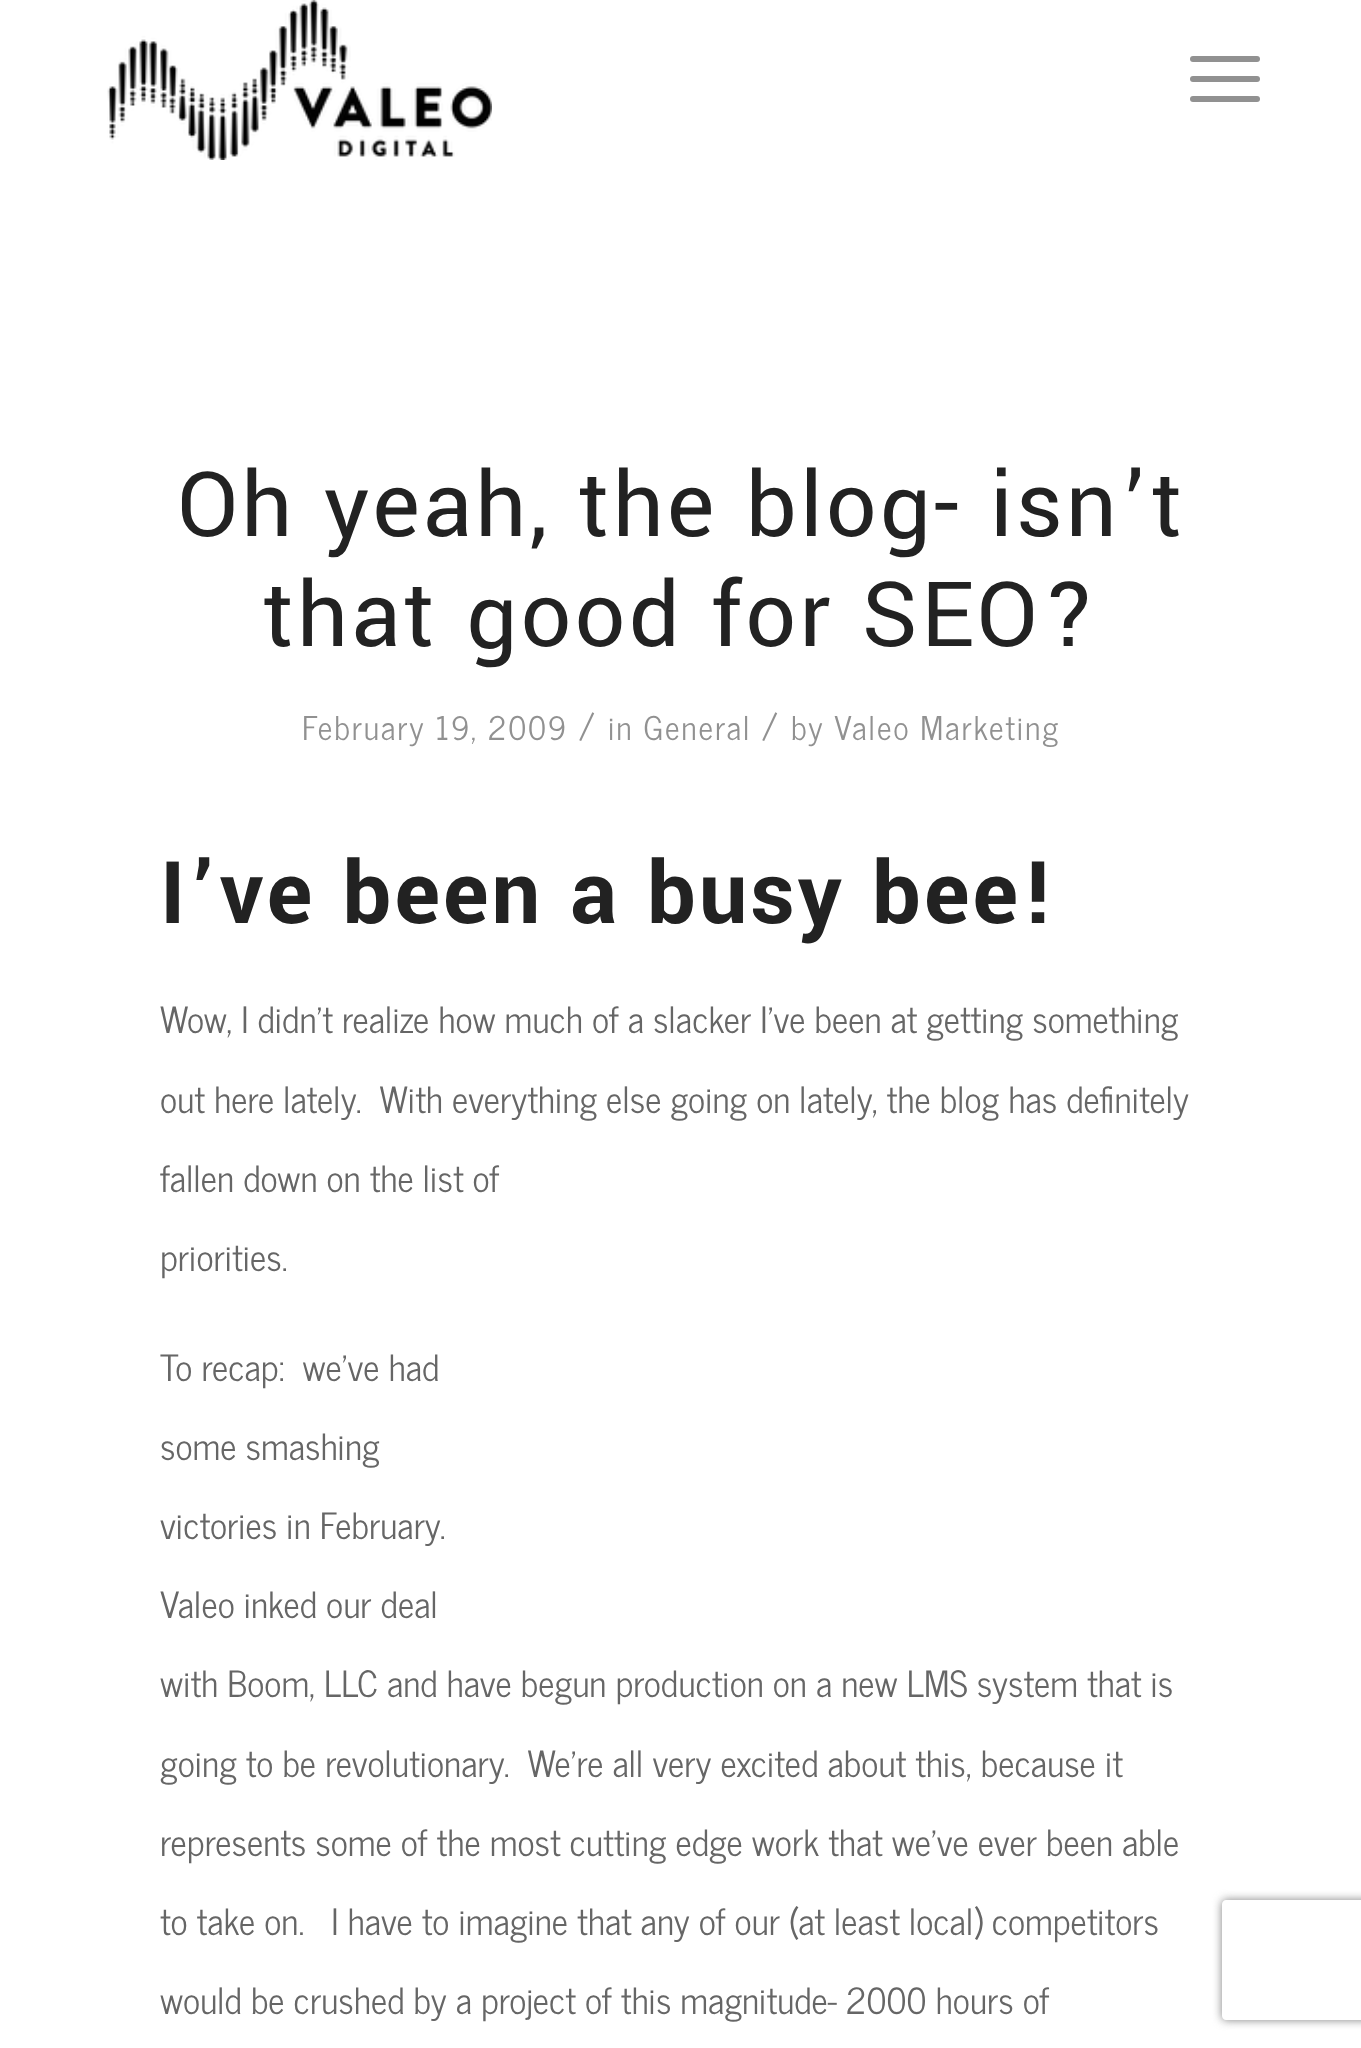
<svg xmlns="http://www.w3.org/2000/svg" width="1361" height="2048">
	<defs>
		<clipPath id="clip1"><path d="M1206 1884H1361V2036H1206ZM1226 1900H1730C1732 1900 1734 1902 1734 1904V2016C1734 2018 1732 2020 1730 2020H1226C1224 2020 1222 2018 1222 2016V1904C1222 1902 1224 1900 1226 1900Z" clip-rule="evenodd" /></clipPath>
	</defs>
	<rect width="100%" height="100%" fill="#FFFFFF" />
	<image x="107" y="0" width="385" height="160" href="assets/img1.png" />
	<rect x="1190" y="76" width="70" height="6" rx="3" fill="#919191" />
	<rect x="1190" y="56" width="70" height="6" rx="3" fill="#919191" />
	<rect x="1190" y="96" width="70" height="6" rx="3" fill="#919191" />
	<g font-family="Yantramanav" font-size="100" letter-spacing="3" fill="#222222">
		<text x="177" y="536">Oh yeah, the blog- isn’t</text>
		<text x="263" y="646">that good for SEO?</text>
	</g>
	<text x="302" y="740" font-family="News Cycle" font-size="32.5" letter-spacing="1.75" fill="#919191">February 19, 2009</text>
	<text x="578" y="740" font-family="News Cycle" font-size="36" letter-spacing="1.75" fill="#919191">/</text>
	<text x="608" y="740" font-family="News Cycle" font-size="32.5" letter-spacing="1.75" fill="#919191">in General</text>
	<text x="761" y="740" font-family="News Cycle" font-size="36" letter-spacing="1.75" fill="#919191">/</text>
	<text x="791" y="740" font-family="News Cycle" font-size="32.5" letter-spacing="1.75" fill="#919191">by Valeo Marketing</text>
	<text x="160" y="923" font-family="Yantramanav" font-size="96" font-weight="700" letter-spacing="2.9" fill="#222222">I’ve been a busy bee!</text>
	<g font-family="News Cycle" font-size="36" fill="#666666">
		<text x="160" y="1033">Wow, I didn’t realize how much of a slacker I’ve been at getting something</text>
		<text x="160" y="1113" xml:space="preserve">out here lately.  With everything else going on lately, the blog has definitely</text>
		<text x="160" y="1192">fallen down on the list of</text>
		<text x="160" y="1271">priorities.</text>
		<text x="160" y="1381" xml:space="preserve">To recap:  we’ve had</text>
		<text x="160" y="1460">some smashing</text>
		<text x="160" y="1539">victories in February.</text>
		<text x="160" y="1618">Valeo inked our deal</text>
		<text x="160" y="1697">with Boom, LLC and have begun production on a new LMS system that is</text>
		<text x="160" y="1777" xml:space="preserve">going to be revolutionary.  We’re all very excited about this, because it</text>
		<text x="160" y="1856">represents some of the most cutting edge work that we’ve ever been able</text>
		<text x="160" y="1935" xml:space="preserve">to take on.   I have to imagine that any of our (at least local) competitors</text>
		<text x="160" y="2014">would be crushed by a project of this magnitude- 2000 hours of</text>
	</g>
	<g clip-path="url(#clip1)">
		<rect x="1222" y="1900" width="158" height="120" rx="4" fill="#808080" filter="blur(5px)" />
	</g>
</svg>
